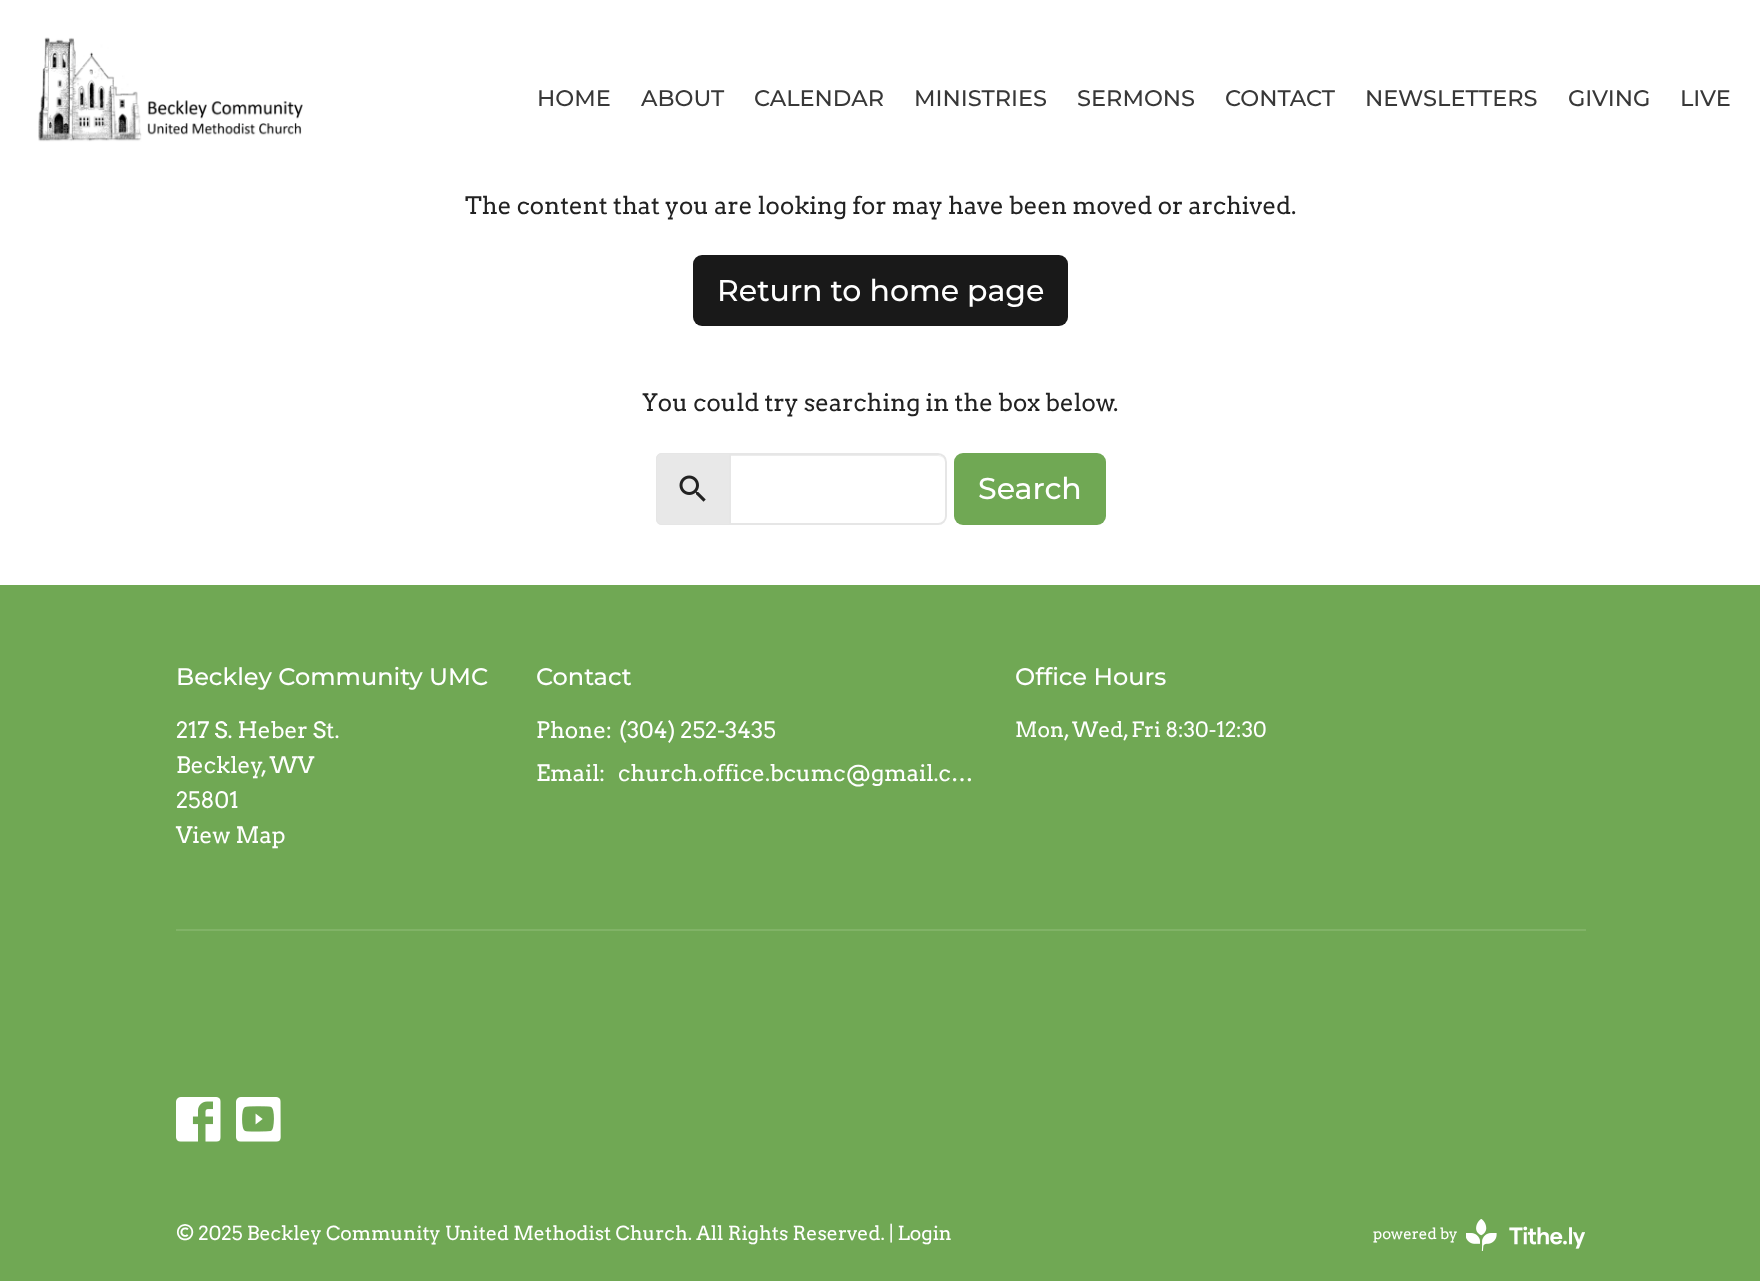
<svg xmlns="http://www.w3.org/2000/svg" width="1760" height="1281">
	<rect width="100%" height="100%" fill="#FFFFFF" />
	<image x="38" y="37" width="265" height="105" href="assets/img1.png" />
	<g font-family="Montserrat" font-size="22.5" font-weight="500" fill="#383838">
		<text x="537" y="106">HOME</text>
		<text x="641" y="106">ABOUT</text>
		<text x="754" y="106">CALENDAR</text>
		<text x="914" y="106">MINISTRIES</text>
		<text x="1077" y="106">SERMONS</text>
		<text x="1225" y="106">CONTACT</text>
		<text x="1365" y="106">NEWSLETTERS</text>
		<text x="1568" y="106">GIVING</text>
		<text x="1680" y="106">LIVE</text>
	</g>
	<text x="465" y="214" font-family="Arvo" font-size="24" fill="#222222">The content that you are looking for may have been moved or archived.</text>
	<rect x="693" y="255" width="375" height="71" rx="9" fill="#191919" />
	<text x="717" y="301" font-family="Montserrat" font-size="30" font-weight="500" fill="#FFFFFF">Return to home page</text>
	<text x="642" y="411" font-family="Arvo" font-size="24" fill="#222222">You could try searching in the box below.</text>
	<path d="M662 453H729V525H662C658.5 525 656 522.5 656 519V459C656 455.5 658.5 453 662 453Z" fill="#E8E8E8" />
	<path d="M662 453H729V525H662C658 525 656 522 656 519V459C656 456 658 453 662 453ZM662 454H729V524H662C659 524 657 521 657 519V459C657 457 659 454 662 454Z" fill="#E6E6E6" fill-rule="evenodd" />
	<image x="679" y="475" width="27" height="27" href="assets/img2.png" />
	<path d="M731 455V456H938C942 456 945 459 945 464C945 459 942 455 937 455Z" fill="#ECECEC" />
	<path d="M730 454H938C942.5 454 946 457.5 946 462V516C946 520.5 942.5 524 938 524H730Z" fill="none" stroke="#E6E6E6" stroke-width="2" />
	<rect x="954" y="453" width="152" height="72" rx="9" fill="#70A854" />
	<text x="978" y="499" font-family="Montserrat" font-size="30" font-weight="500" fill="#FFFFFF">Search</text>
	<rect x="0" y="585" width="1760" height="696" fill="#70A854" />
	<text x="176" y="685" font-family="Montserrat" font-size="24" font-weight="500" fill="#FFFFFF">Beckley Community UMC</text>
	<g font-family="Arvo" font-size="22.5" fill="#FFFFFF">
		<text x="176" y="738">217 S. Heber St.</text>
		<text x="176" y="773">Beckley, WV</text>
		<text x="176" y="808">25801</text>
		<text x="176" y="843">View Map</text>
	</g>
	<text x="536" y="685" font-family="Montserrat" font-size="24" font-weight="500" fill="#FFFFFF">Contact</text>
	<g font-family="Arvo" font-size="22.5" fill="#FFFFFF">
		<text x="536" y="738">Phone:</text>
		<text x="619" y="738">(304) 252-3435</text>
		<text x="536" y="781">Email:</text>
		<text x="618" y="781">church.office.bcumc@gmail.c…</text>
	</g>
	<text x="1015" y="685" font-family="Montserrat" font-size="24" font-weight="500" fill="#FFFFFF">Office Hours</text>
	<text x="1015" y="737" font-family="Arvo" font-size="21" fill="#FFFFFF">Mon, Wed, Fri 8:30-12:30</text>
	<rect x="176" y="929" width="1410" height="2" fill="#81B367" />
	<image x="176" y="1097" width="45" height="45" href="assets/img3.png" />
	<image x="236" y="1097" width="45" height="45" href="assets/img4.png" />
	<text x="176" y="1240" font-family="Arvo" font-size="19.35" fill="#FFFFFF">© 2025 Beckley Community United Methodist Church. All Rights Reserved. | Login</text>
	<text x="1373" y="1239" font-family="Arvo" font-size="15" fill="#FFFFFF">powered by</text>
	<image x="1466" y="1219" width="119" height="32" href="assets/img5.png" />
</svg>
